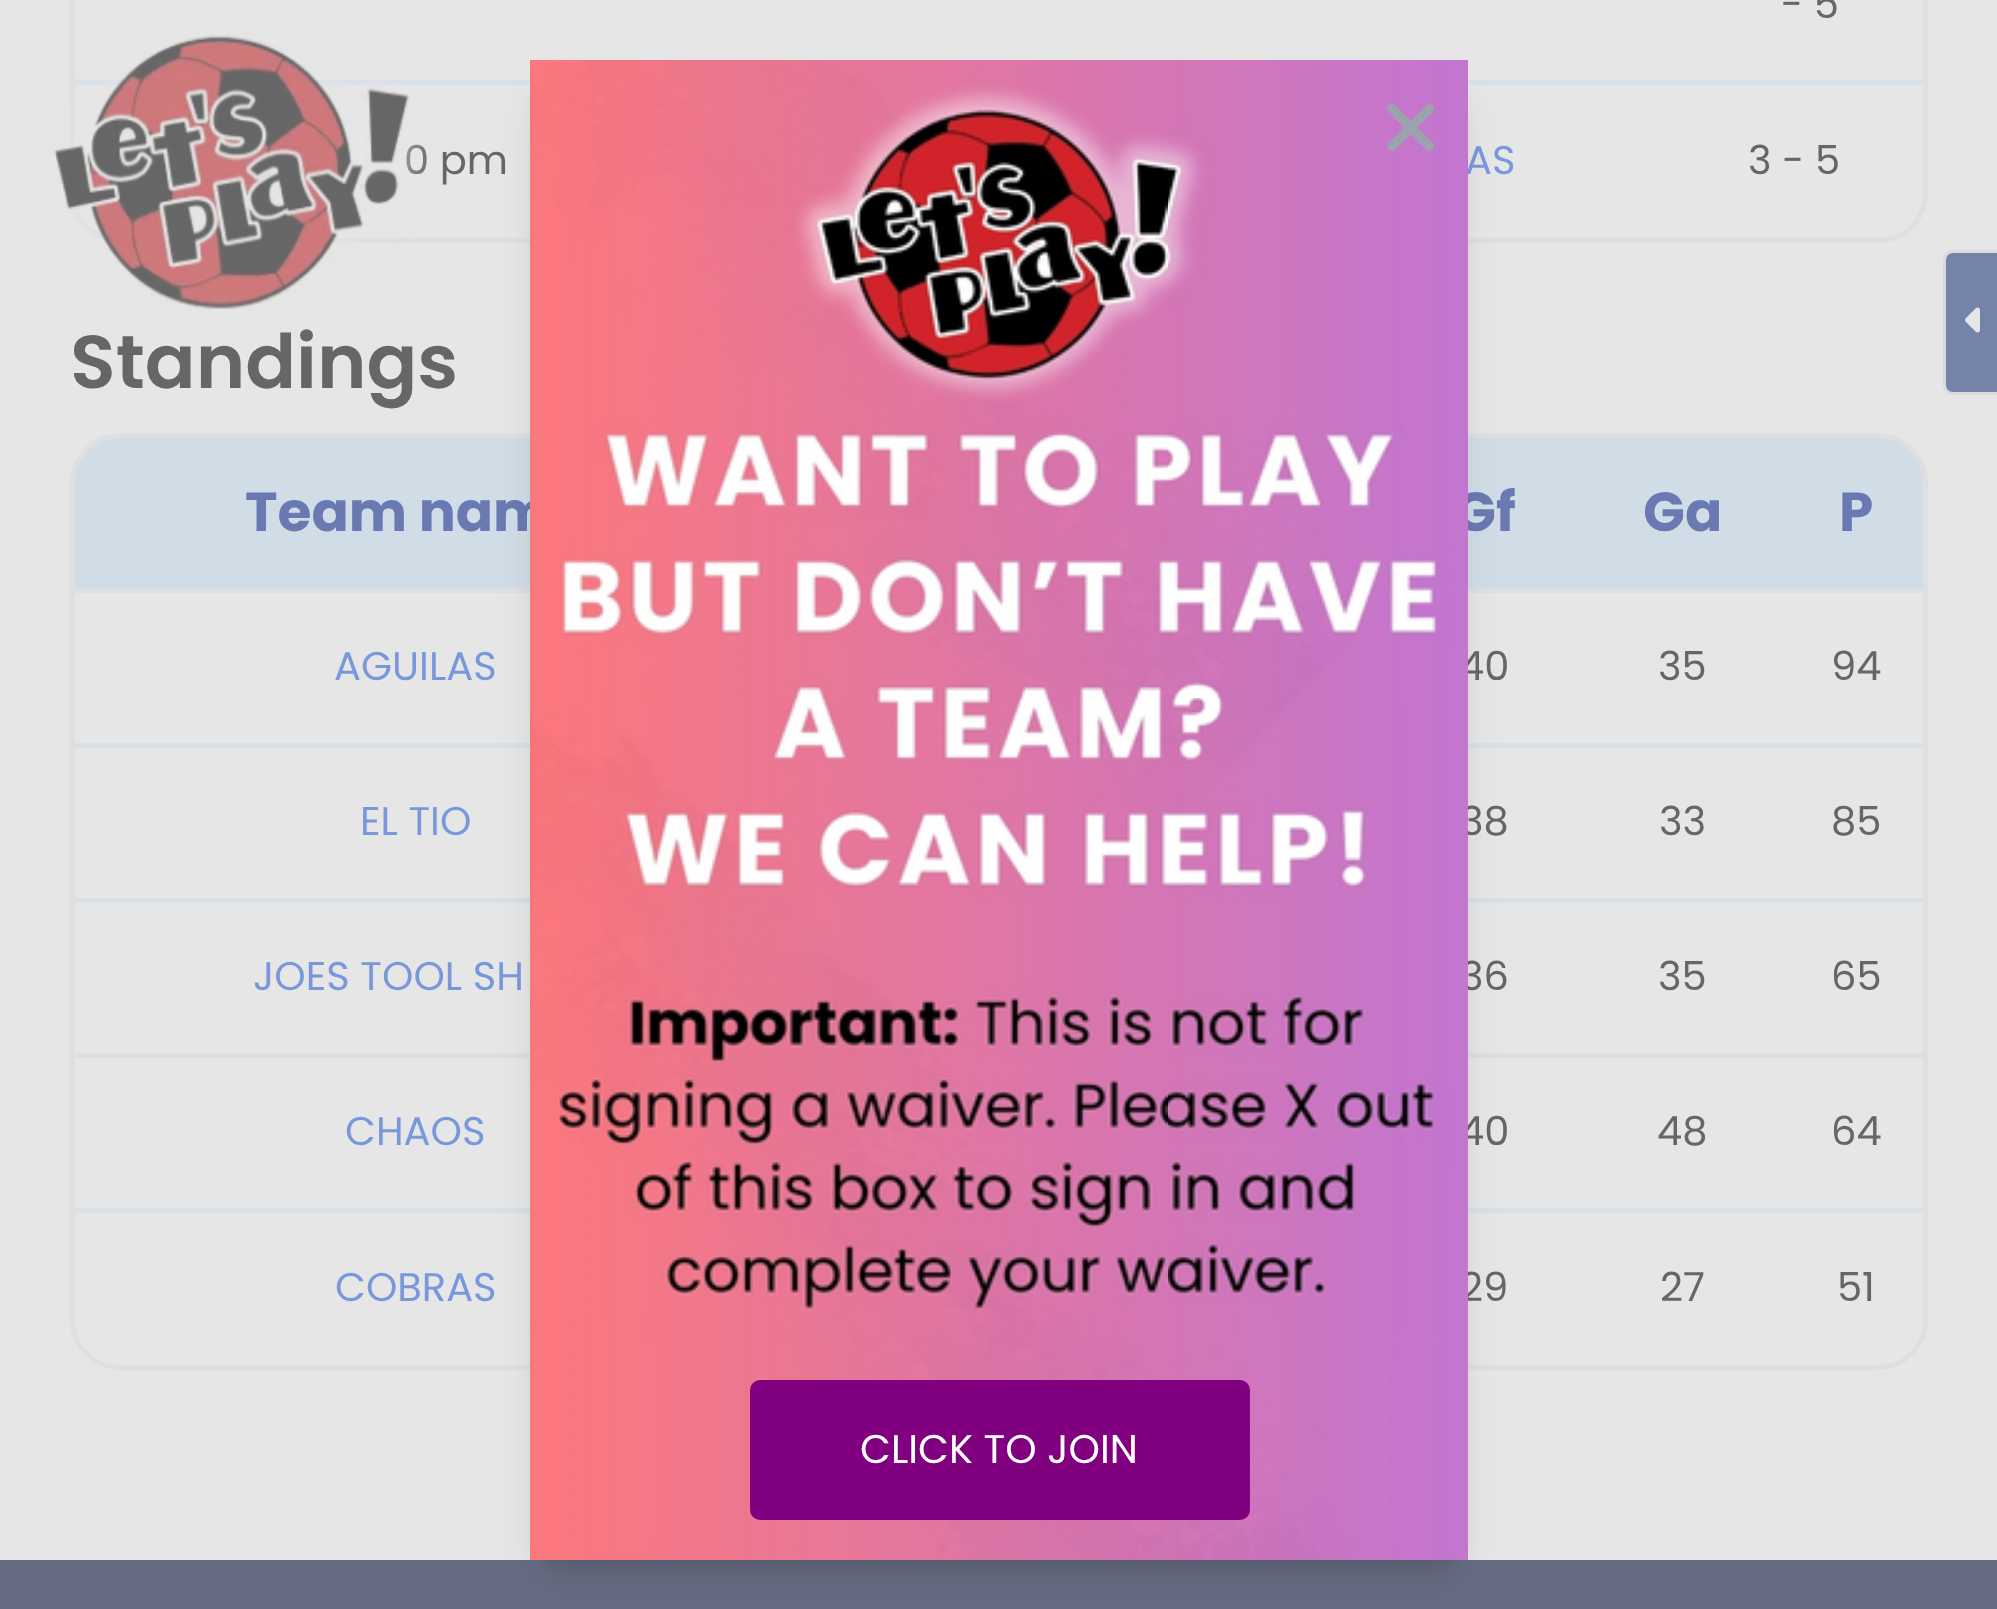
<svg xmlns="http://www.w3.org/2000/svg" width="1997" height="1609">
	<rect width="100%" height="100%" fill="#E6E6E6" />
	<rect x="72.5" y="-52.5" width="1853" height="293" rx="47.5" fill="none" stroke="#DDDFE0" stroke-width="5" />
	<rect x="75" y="80" width="455" height="5" fill="#D8E0E6" />
	<text x="404" y="174" font-family="Poppins" font-size="40" fill="#666666">0 pm</text>
	<text x="70" y="388" font-family="Poppins" font-size="75" font-weight="600" fill="#666666">Standings</text>
	<image x="54" y="0" width="373" height="347" href="assets/img1.png" />
	<rect x="1468" y="80" width="455" height="5" fill="#D8E0E6" />
	<text x="1781" y="18" font-family="Poppins" font-size="40" fill="#666666">- 5</text>
	<text x="1465" y="174" font-family="Poppins" font-size="40" fill="#7998DC">AS</text>
	<text x="1748" y="174" font-family="Poppins" font-size="40" fill="#666666">3 - 5</text>
	<rect x="72.5" y="435.5" width="1853" height="932" rx="47.5" fill="none" stroke="#DDDFE0" stroke-width="5" />
	<path d="M120 438H1878C1903 438 1923 458 1923 483V590H75V483C75 458 95 438 120 438Z" fill="#D1DDE6" />
	<rect x="75" y="588" width="455" height="5" fill="#DDDFE0" />
	<g font-family="Poppins" font-size="55" font-weight="700" fill="#6A79B1">
		<text x="245" y="531">Team nam</text>
		<text x="1454" y="531">Gf</text>
		<text x="1643" y="531">Ga</text>
	</g>
	<rect x="1468" y="588" width="455" height="5" fill="#DDDFE0" />
	<text x="1839" y="531" font-family="Poppins" font-size="55" font-weight="700" fill="#6A79B1">P</text>
	<rect x="75" y="743" width="455" height="5" fill="#D8E0E6" />
	<text x="334" y="680" font-family="Poppins" font-size="40" fill="#7998DC">AGUILAS</text>
	<g font-family="Poppins" font-size="40" fill="#666666">
		<text x="1459" y="680">40</text>
		<text x="1658" y="680">35</text>
	</g>
	<rect x="1468" y="743" width="455" height="5" fill="#D8E0E6" />
	<text x="1831" y="680" font-family="Poppins" font-size="40" fill="#666666">94</text>
	<rect x="75" y="898" width="455" height="5" fill="#D8E0E6" />
	<text x="360" y="835" font-family="Poppins" font-size="40" fill="#7998DC">EL TIO</text>
	<g font-family="Poppins" font-size="40" fill="#666666">
		<text x="1460" y="835">38</text>
		<text x="1659" y="835">33</text>
	</g>
	<rect x="1468" y="898" width="455" height="5" fill="#D8E0E6" />
	<text x="1831" y="835" font-family="Poppins" font-size="40" fill="#666666">85</text>
	<rect x="75" y="1053" width="455" height="5" fill="#D8E0E6" />
	<text x="253" y="990" font-family="Poppins" font-size="40" fill="#7998DC">JOES TOOL SH</text>
	<g font-family="Poppins" font-size="40" fill="#666666">
		<text x="1460" y="990">36</text>
		<text x="1658" y="990">35</text>
	</g>
	<rect x="1468" y="1053" width="455" height="5" fill="#D8E0E6" />
	<text x="1831" y="990" font-family="Poppins" font-size="40" fill="#666666">65</text>
	<rect x="75" y="1208" width="455" height="5" fill="#D8E0E6" />
	<text x="345" y="1145" font-family="Poppins" font-size="40" fill="#7998DC">CHAOS</text>
	<g font-family="Poppins" font-size="40" fill="#666666">
		<text x="1459" y="1145">40</text>
		<text x="1657" y="1145">48</text>
	</g>
	<rect x="1468" y="1208" width="455" height="5" fill="#D8E0E6" />
	<text x="1831" y="1145" font-family="Poppins" font-size="40" fill="#666666">64</text>
	<text x="335" y="1301" font-family="Poppins" font-size="40" fill="#7998DC">COBRAS</text>
	<g font-family="Poppins" font-size="40" fill="#666666">
		<text x="1460" y="1301">29</text>
		<text x="1660" y="1301">27</text>
		<text x="1837" y="1301">51</text>
	</g>
	<rect x="1944.5" y="251.5" width="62" height="142" rx="8.5" fill="#7583AB" stroke="#D9DADC" stroke-width="3" />
	<image x="1965" y="307" width="15" height="26" href="assets/img2.png" />
	<rect x="0" y="1560" width="1997" height="49" fill="#666C82" />
	<rect x="540" y="80" width="918" height="1480" rx="20" fill="#000000" fill-opacity="0.1" filter="blur(7.5px)" />
	<rect x="538" y="93" width="922" height="1485" rx="23" fill="#000000" fill-opacity="0.1" filter="blur(19px)" />
	<image x="530" y="60" width="938" height="1500" href="assets/img4.png" />
	<image x="1387" y="104" width="47" height="47" href="assets/img3.png" />
	<rect x="750" y="1380" width="500" height="140" rx="10" fill="#800080" />
	<text x="860" y="1463" font-family="Poppins" font-size="40" fill="#FFFFFF">CLICK TO JOIN</text>
</svg>
